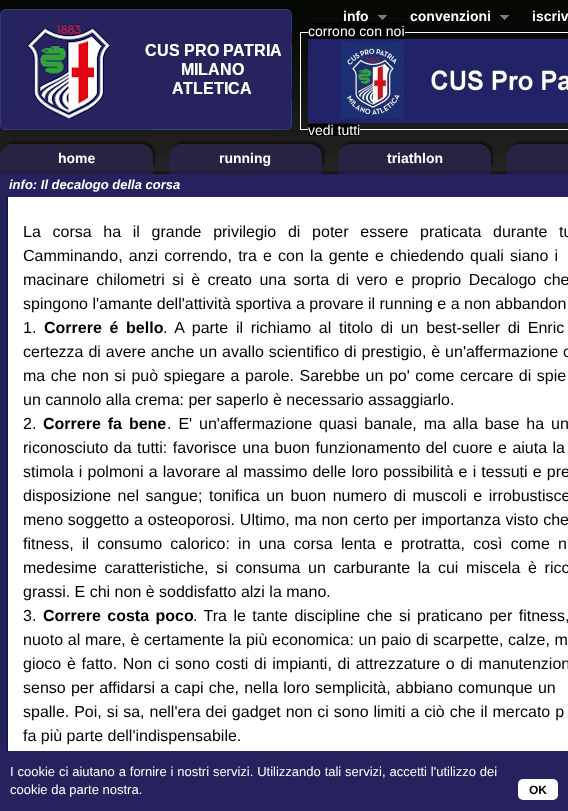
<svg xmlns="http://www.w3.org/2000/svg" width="568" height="811">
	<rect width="100%" height="100%" fill="#FFFFFF" />
	<image x="0" y="0" width="568" height="174" href="assets/img1.png" />
	<image x="0" y="9" width="292" height="121" href="assets/img2.png" />
	<text x="343" y="21" font-family="Liberation Sans" font-size="14" font-weight="700" fill="#FFFFFF">info</text>
	<image x="378" y="15" width="9" height="5" href="assets/img3.png" />
	<text x="410" y="21" font-family="Liberation Sans" font-size="14" font-weight="700" fill="#FFFFFF">convenzioni</text>
	<image x="500" y="15" width="9" height="5" href="assets/img3.png" />
	<text x="532" y="21" font-family="Liberation Sans" font-size="14" font-weight="700" fill="#FFFFFF">iscriv</text>
	<rect x="300.5" y="32.5" width="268" height="97" fill="none" stroke="#FFFFFF" />
	<image x="308" y="39" width="260" height="84" href="assets/img4.png" />
	<rect x="308" y="23" width="97" height="16" fill="#000000" />
	<text x="308" y="36" font-family="Liberation Sans" font-size="14" fill="#FFFFFF">corrono con noi</text>
	<rect x="308" y="124" width="52" height="12" fill="#000000" />
	<text x="308" y="135" font-family="Liberation Sans" font-size="14" fill="#FFFFFF">vedi tutti</text>
	<rect x="2" y="142" width="153" height="30" rx="12" fill="#000000" fill-opacity="0.5" filter="blur(1px)" />
	<rect x="2" y="173" width="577" height="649" rx="8" fill="#000000" fill-opacity="0.5" filter="blur(1px)" />
	<path d="M12 144H141C147.5 144 153 149.5 153 156V174H0V156C0 149.5 5.5 144 12 144Z" fill="#272342" />
	<text x="58" y="163" font-family="Liberation Sans" font-size="14" font-weight="700" fill="#FFFFFF">home</text>
	<rect x="171" y="142" width="153" height="30" rx="12" fill="#000000" fill-opacity="0.5" filter="blur(1px)" />
	<path d="M181 144H310C316.5 144 322 149.5 322 156V174H169V156C169 149.5 174.5 144 181 144Z" fill="#272342" />
	<text x="219" y="163" font-family="Liberation Sans" font-size="14" font-weight="700" fill="#FFFFFF">running</text>
	<rect x="340" y="142" width="153" height="30" rx="12" fill="#000000" fill-opacity="0.5" filter="blur(1px)" />
	<path d="M350 144H479C485.5 144 491 149.5 491 156V174H338V156C338 149.5 343.5 144 350 144Z" fill="#272342" />
	<text x="387" y="163" font-family="Liberation Sans" font-size="14" font-weight="700" fill="#FFFFFF">triathlon</text>
	<rect x="509" y="142" width="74" height="30" rx="12" fill="#000000" fill-opacity="0.5" filter="blur(1px)" />
	<path d="M519 144H568C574.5 144 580 149.5 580 156V174H507V156C507 149.5 512.5 144 519 144Z" fill="#272342" />
	<rect x="2" y="172" width="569" height="1" fill="#000000" fill-opacity="0.5" filter="blur(1px)" />
	<rect x="0" y="197" width="8" height="554" fill="#26225D" />
	<rect x="7" y="178" width="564" height="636" fill="#000000" fill-opacity="0.5" filter="blur(1px)" />
	<rect x="0" y="174" width="568" height="23" fill="#26225D" />
	<text x="9" y="189" font-family="Liberation Sans" font-size="13" font-weight="700" font-style="italic" fill="#FFFFFF">info: Il decalogo della corsa</text>
	<rect x="8" y="197" width="560" height="554" fill="#FFFFFF" />
	<g font-family="Liberation Sans" font-size="16" fill="#000000">
		<text x="23" y="237" word-spacing="7.25">La corsa ha il grande privilegio di poter essere praticata durante tu</text>
		<text x="23" y="261" word-spacing="1.75">Camminando, anzi correndo, tra e con la gente e chiedendo quali siano i</text>
		<text x="23" y="285" word-spacing="3">macinare chilometri si è creato una sorta di vero e proprio Decalogo che</text>
		<text x="23" y="309">spingono l'amante dell'attività sportiva a provare il running e a non abbandon</text>
		<text x="23" y="333">1.</text>
	</g>
	<text x="44" y="333" word-spacing="3.25" font-family="Liberation Sans" font-size="16" font-weight="700" fill="#000000">Correre é bello</text>
	<g font-family="Liberation Sans" font-size="16" fill="#000000">
		<text x="163" y="333" word-spacing="3.25">. A parte il richiamo al titolo di un best-seller di Enric</text>
		<text x="23" y="357" word-spacing="0.5">certezza di avere anche un avallo scientifico di prestigio, è un'affermazione c</text>
		<text x="23" y="381" word-spacing="1.1">ma che non si può spiegare a parole. Sarebbe un po' come cercare di spie</text>
		<text x="23" y="405">un cannolo alla crema: per saperlo è necessario assaggiarlo.</text>
		<text x="23" y="429">2.</text>
	</g>
	<text x="43" y="429" word-spacing="2.5" font-family="Liberation Sans" font-size="16" font-weight="700" fill="#000000">Correre fa bene</text>
	<g font-family="Liberation Sans" font-size="16" fill="#000000">
		<text x="167" y="429" word-spacing="2.5">. E' un'affermazione quasi banale, ma alla base ha un</text>
		<text x="23" y="453" word-spacing="1">riconosciuto da tutti: favorisce una buon funzionamento del cuore e aiuta la</text>
		<text x="23" y="477" word-spacing="0.7">stimola i polmoni a lavorare al massimo delle loro possibilità e i tessuti e pre</text>
		<text x="23" y="501" word-spacing="2.1">disposizione nel sangue; tonifica un buon numero di muscoli e irrobustisce</text>
		<text x="23" y="525" word-spacing="0.4">meno soggetto a osteoporosi. Ultimo, ma non certo per importanza visto che</text>
		<text x="23" y="549" word-spacing="3.75">fitness, il consumo calorico: in una corsa lenta e protratta, così come n</text>
		<text x="23" y="573" word-spacing="3.25">medesime caratteristiche, si consuma un carburante la cui miscela è ricc</text>
		<text x="23" y="597">grassi. E chi non è soddisfatto alzi la mano.</text>
		<text x="23" y="621">3.</text>
	</g>
	<text x="43" y="621" word-spacing="2" font-family="Liberation Sans" font-size="16" font-weight="700" fill="#000000">Correre costa poco</text>
	<g font-family="Liberation Sans" font-size="16" fill="#000000">
		<text x="193" y="621" word-spacing="2">. Tra le tante discipline che si praticano per fitness,</text>
		<text x="23" y="645" word-spacing="0.25">nuoto al mare, è certamente la più economica: un paio di scarpette, calze, m</text>
		<text x="23" y="669" word-spacing="1.25">gioco è fatto. Non ci sono costi di impianti, di attrezzature o di manutenzion</text>
		<text x="23" y="693" word-spacing="0.75">senso per affidarsi a capi che, nella loro semplicità, abbiano comunque un</text>
		<text x="23" y="717" word-spacing="0.5">spalle. Poi, si sa, nell'era dei gadget non ci sono limiti a ciò che il mercato p</text>
		<text x="23" y="741">fa più parte dell'indispensabile.</text>
	</g>
	<rect x="0" y="751" width="568" height="60" fill="#26225D" />
	<g font-family="Liberation Sans" font-size="13" fill="#FFFFFF">
		<text x="10" y="776" word-spacing="0.25">I cookie ci aiutano a fornire i nostri servizi. Utilizzando tali servizi, accetti l'utilizzo dei</text>
		<text x="10" y="794">cookie da parte nostra.</text>
	</g>
	<rect x="518" y="779" width="40" height="21" rx="5" fill="#FFFFFF" />
	<text x="529" y="794" font-family="Liberation Sans" font-size="12" font-weight="700" fill="#000000">OK</text>
</svg>
